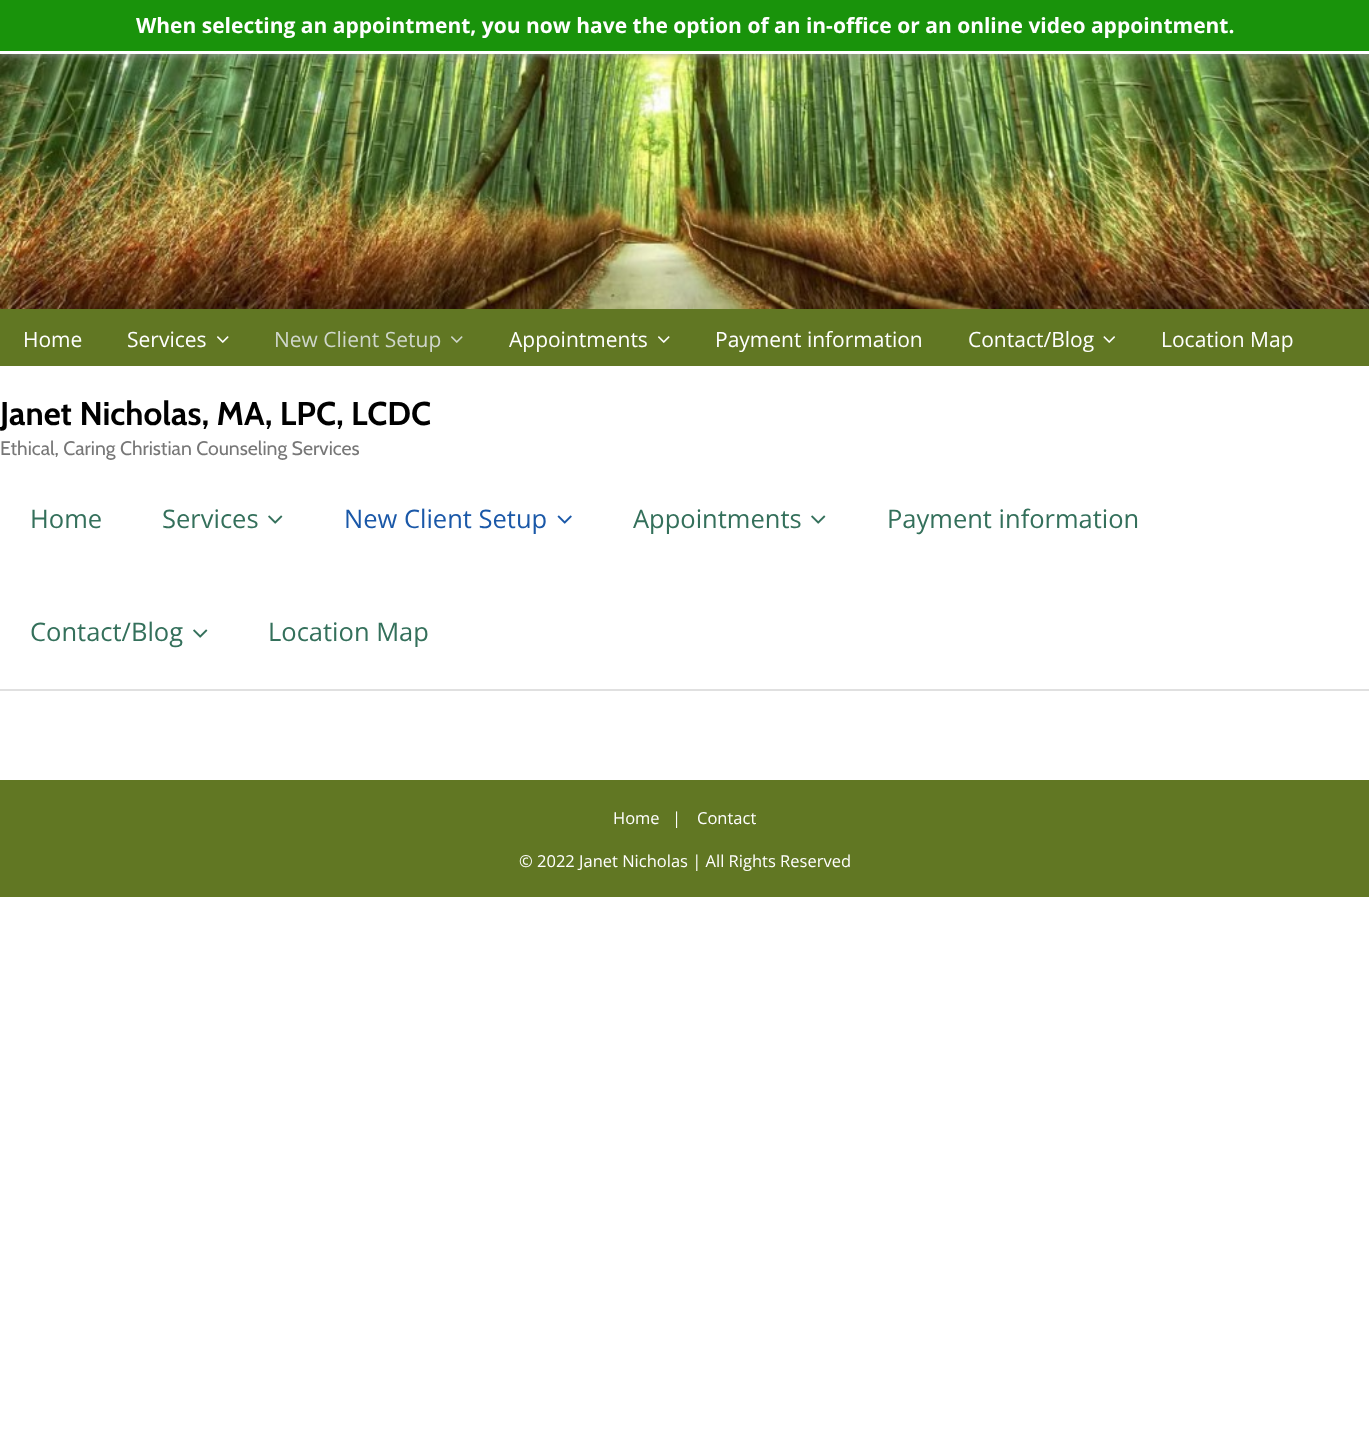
<svg xmlns="http://www.w3.org/2000/svg" width="1369" height="1440">
	<rect width="100%" height="100%" fill="#FFFFFF" />
	<image x="0" y="54" width="1369" height="255" href="assets/img1.png" />
	<rect x="0" y="0" width="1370" height="54" fill="#999999" filter="blur(4.5px)" />
	<rect x="0" y="0" width="1369" height="51" fill="#19930B" />
	<rect x="0" y="51" width="1369" height="3" fill="#FFFFFF" />
	<text x="136" y="33" font-family="Open Sans" font-size="21" font-weight="700" fill="#FFFFFF">When selecting an appointment, you now have the option of an in-office or an online video appointment.</text>
	<rect x="0" y="309" width="1369" height="57" fill="#617723" />
	<g font-family="Open Sans" font-size="21" fill="#FFFFFF">
		<text x="23" y="347">Home</text>
		<text x="127" y="347">Services</text>
	</g>
	<image x="217" y="336" width="12" height="7" href="assets/img2.png" />
	<text x="274" y="347" font-family="Open Sans" font-size="21" fill="#CFD6CB">New Client Setup</text>
	<image x="451" y="336" width="12" height="7" href="assets/img3.png" />
	<text x="509" y="347" font-family="Open Sans" font-size="21" fill="#FFFFFF">Appointments</text>
	<image x="658" y="336" width="12" height="7" href="assets/img2.png" />
	<g font-family="Open Sans" font-size="21" fill="#FFFFFF">
		<text x="715" y="347">Payment information</text>
		<text x="968" y="347">Contact/Blog</text>
	</g>
	<image x="1103" y="336" width="12" height="7" href="assets/img4.png" />
	<text x="1161" y="347" font-family="Open Sans" font-size="21" fill="#FFFFFF">Location Map</text>
	<rect x="0" y="689" width="1369" height="2" fill="#E0E0E0" />
	<text x="0" y="425" font-family="Cabin" font-size="33" font-weight="700" fill="#000000">Janet Nicholas, MA, LPC, LCDC</text>
	<text x="0" y="455" font-family="Cabin" font-size="19.5" fill="#777777">Ethical, Caring Christian Counseling Services</text>
	<g font-family="Open Sans" font-size="25.5" fill="#34705B">
		<text x="30" y="528">Home</text>
		<text x="162" y="528">Services</text>
	</g>
	<image x="268" y="515" width="15" height="9" href="assets/img5.png" />
	<text x="344" y="528" font-family="Open Sans" font-size="25.5" fill="#1A58A8">New Client Setup</text>
	<image x="557" y="515" width="15" height="9" href="assets/img6.png" />
	<text x="633" y="528" font-family="Open Sans" font-size="25.5" fill="#34705B">Appointments</text>
	<image x="811" y="515" width="15" height="9" href="assets/img5.png" />
	<g font-family="Open Sans" font-size="25.5" fill="#34705B">
		<text x="887" y="528">Payment information</text>
		<text x="30" y="641">Contact/Blog</text>
	</g>
	<image x="193" y="629" width="15" height="9" href="assets/img5.png" />
	<text x="268" y="641" font-family="Open Sans" font-size="25.5" fill="#34705B">Location Map</text>
	<rect x="0" y="780" width="1369" height="117" fill="#617723" />
	<g font-family="Open Sans" font-size="16.5" fill="#FFFFFF">
		<text x="613" y="824">Home</text>
		<text x="672" y="824">|</text>
		<text x="697" y="824">Contact</text>
		<text x="519" y="867">© 2022 Janet Nicholas | All Rights Reserved</text>
	</g>
</svg>
